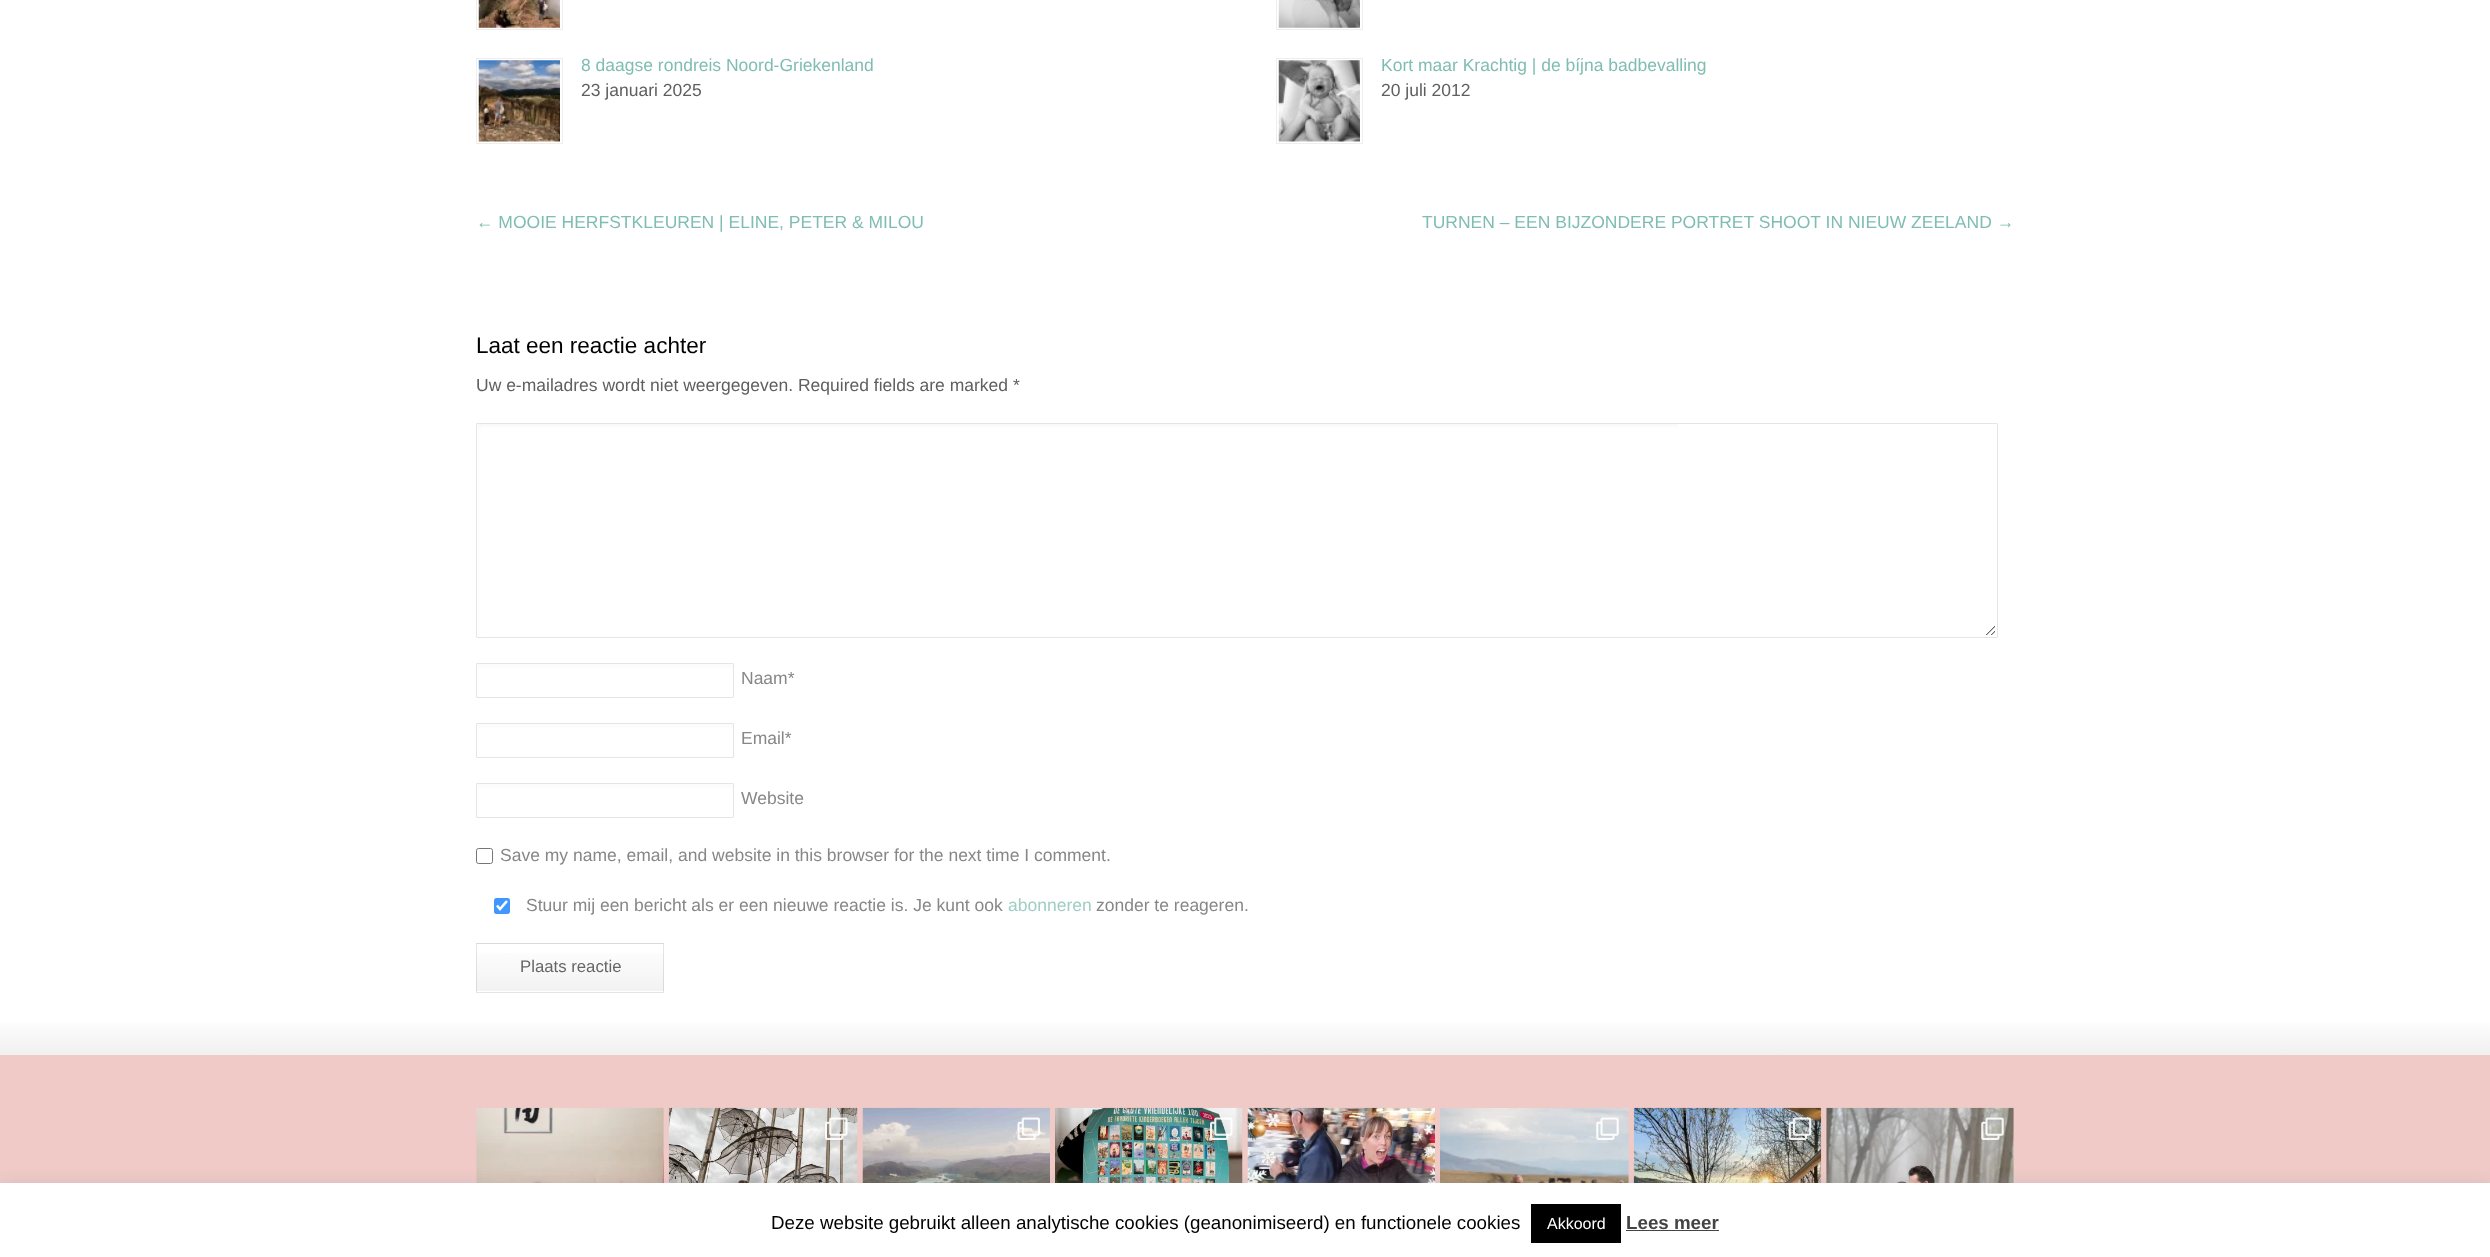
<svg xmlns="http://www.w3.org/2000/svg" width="2490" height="1257">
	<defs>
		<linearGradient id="g1" gradientUnits="userSpaceOnUse" x1="570" y1="896" x2="570" y2="944"><stop offset="0" stop-color="#FFFFFF" /><stop offset="1" stop-color="#F2F2F2" /></linearGradient>
		<linearGradient id="g2" gradientUnits="userSpaceOnUse" x1="570" y1="944" x2="570" y2="991"><stop offset="0" stop-color="#FFFFFF" /><stop offset="1" stop-color="#F2F2F2" /></linearGradient>
		<linearGradient id="g3" gradientUnits="userSpaceOnUse" x1="1245" y1="1017" x2="1245" y2="1055"><stop offset="0" stop-color="#FFFFFF" /><stop offset="1" stop-color="#F0F0F0" /></linearGradient>
	</defs>
	<rect width="100%" height="100%" fill="#FFFFFF" />
	<rect x="476.5" y="-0.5" width="86" height="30" fill="none" stroke="#EEEEEE" />
	<image x="478" y="0" width="82" height="28" href="assets/img1.png" />
	<rect x="476.5" y="58.5" width="86" height="85" fill="none" stroke="#EEEEEE" />
	<image x="478" y="60" width="82" height="82" href="assets/img2.png" />
	<text x="581" y="71" font-family="Liberation Sans" font-size="17.5" fill="#7FBDB2">8 daagse rondreis Noord-Griekenland</text>
	<text x="581" y="96" font-family="Liberation Sans" font-size="17.5" fill="#5F5F5F">23 januari 2025</text>
	<rect x="1276.5" y="-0.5" width="86" height="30" fill="none" stroke="#EEEEEE" />
	<image x="1278" y="0" width="82" height="28" href="assets/img3.png" />
	<rect x="1276.5" y="58.5" width="86" height="85" fill="none" stroke="#EEEEEE" />
	<image x="1278" y="60" width="82" height="82" href="assets/img4.png" />
	<text x="1381" y="71" font-family="Liberation Sans" font-size="17.5" fill="#7FBDB2">Kort maar Krachtig | de bíjna badbevalling</text>
	<text x="1381" y="96" font-family="Liberation Sans" font-size="17.5" fill="#5F5F5F">20 juli 2012</text>
	<g font-family="Liberation Sans" font-size="17.5" fill="#7FBDB2">
		<text x="476" y="228">← MOOIE HERFSTKLEUREN | ELINE, PETER &amp; MILOU</text>
		<text x="1422" y="228">TURNEN – EEN BIJZONDERE PORTRET SHOOT IN NIEUW ZEELAND →</text>
	</g>
	<text x="476" y="353" font-family="Liberation Sans" font-size="22.5" fill="#000000">Laat een reactie achter</text>
	<text x="476" y="391" font-family="Liberation Sans" font-size="17.5" fill="#5F5F5F">Uw e-mailadres wordt niet weergegeven. Required fields are marked *</text>
	<image x="478" y="424" width="1517" height="211" href="assets/img5.png" />
	<rect x="476.5" y="423.5" width="1521" height="214" rx="0.5" fill="none" stroke="#E5E5E5" />
	<rect x="478" y="664" width="255" height="4" fill="#FCFCFC" />
	<rect x="476.5" y="663.5" width="257" height="34" rx="0.5" fill="none" stroke="#E5E5E5" />
	<text x="741" y="684" font-family="Liberation Sans" font-size="17.5" fill="#878787">Naam*</text>
	<rect x="478" y="724" width="255" height="4" fill="#FCFCFC" />
	<rect x="476.5" y="723.5" width="257" height="34" rx="0.5" fill="none" stroke="#E5E5E5" />
	<text x="741" y="744" font-family="Liberation Sans" font-size="17.5" fill="#878787">Email*</text>
	<rect x="478" y="784" width="255" height="4" fill="#FCFCFC" />
	<rect x="476.5" y="783.5" width="257" height="34" rx="0.5" fill="none" stroke="#E5E5E5" />
	<text x="741" y="804" font-family="Liberation Sans" font-size="17.5" fill="#878787">Website</text>
	<rect x="476.5" y="848.5" width="16" height="15" rx="2" fill="none" stroke="#767676" />
	<text x="500" y="861" font-family="Liberation Sans" font-size="17.5" fill="#878787">Save my name, email, and website in this browser for the next time I comment.</text>
	<rect x="494" y="898" width="16" height="16" rx="2.5" fill="#4098FF" />
	<path d="M497 905.5L500 909L507 901" fill="none" stroke="#FFFFFF" stroke-width="2.6" />
	<text x="526" y="911" font-family="Liberation Sans" font-size="17.5" fill="#878787">Stuur mij een bericht als er een nieuwe reactie is. Je kunt ook</text>
	<text x="1008" y="911" font-family="Liberation Sans" font-size="17.5" fill="#9FCEC5">abonneren</text>
	<text x="1096" y="911" font-family="Liberation Sans" font-size="17.5" fill="#878787">zonder te reageren.</text>
	<path d="M477 943H663C663.5 943 664 943.5 664 944H476C476 943.5 476.5 943 477 943Z" fill="url(#g1)" />
	<rect x="476" y="953" width="188" height="38" fill="url(#g2)" />
	<rect x="476.5" y="943.5" width="187" height="49" fill="none" stroke="#000000" stroke-opacity="0.1" />
	<text x="520" y="972" font-family="Liberation Sans" font-size="16.75" fill="#666666">Plaats reactie</text>
	<rect x="0" y="1023" width="2490" height="32" fill="url(#g3)" />
	<rect x="0" y="1055" width="2490" height="128" fill="#EFCAC7" />
	<image x="476" y="1107" width="188" height="76" href="assets/img6.png" />
	<image x="668" y="1107" width="190" height="76" href="assets/img7.png" />
	<image x="825" y="1117" width="23" height="23" href="assets/img8.png" />
	<image x="862" y="1107" width="188" height="76" href="assets/img9.png" />
	<image x="1017" y="1117" width="23" height="23" href="assets/img10.png" />
	<image x="1055" y="1107" width="188" height="76" href="assets/img11.png" />
	<image x="1210" y="1117" width="23" height="23" href="assets/img12.png" />
	<image x="1247" y="1107" width="188" height="76" href="assets/img13.png" />
	<image x="1440" y="1108" width="189" height="75" href="assets/img14.png" />
	<image x="1596" y="1117" width="23" height="23" href="assets/img15.png" />
	<image x="1633" y="1107" width="189" height="76" href="assets/img16.png" />
	<image x="1788" y="1117" width="24" height="23" href="assets/img17.png" />
	<image x="1826" y="1107" width="188" height="76" href="assets/img18.png" />
	<image x="1981" y="1117" width="23" height="23" href="assets/img19.png" />
	<rect x="0" y="1181" width="2490" height="75" fill="#ACABAB" fill-opacity="0.3" filter="blur(6px)" />
	<rect x="0" y="1183" width="2490" height="74" fill="#FFFFFF" />
	<text x="771" y="1229" font-family="Liberation Sans" font-size="18.75" fill="#000000">Deze website gebruikt alleen analytische cookies (geanonimiseerd) en functionele cookies</text>
	<rect x="1531" y="1204" width="90" height="39" fill="#000000" />
	<text x="1547" y="1229" font-family="Liberation Sans" font-size="16" fill="#FFFFFF">Akkoord</text>
	<text x="1626" y="1229" font-family="Liberation Sans" font-size="18.75" font-weight="700" fill="#444444">Lees meer</text>
	<rect x="1626" y="1230" width="93" height="1" fill="#444444" />
</svg>
